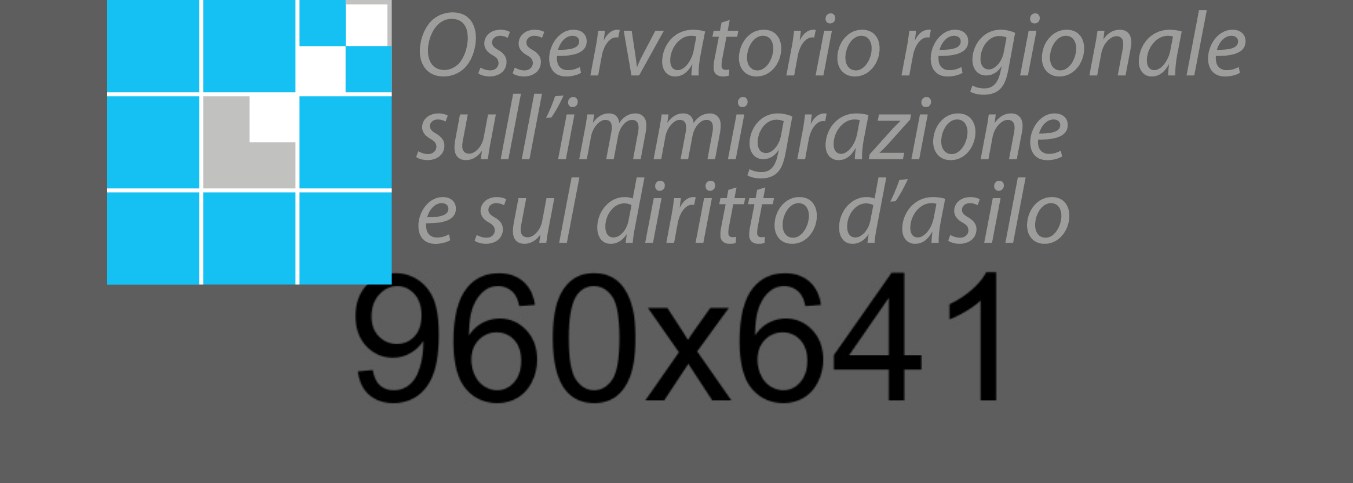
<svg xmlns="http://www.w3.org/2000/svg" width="1353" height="483">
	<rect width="100%" height="100%" fill="#FFFFFF" />
	<image x="0" y="0" width="1353" height="483" href="assets/img1.png" />
	<image x="107" y="0" width="1139" height="285" href="assets/img2.png" />
</svg>
